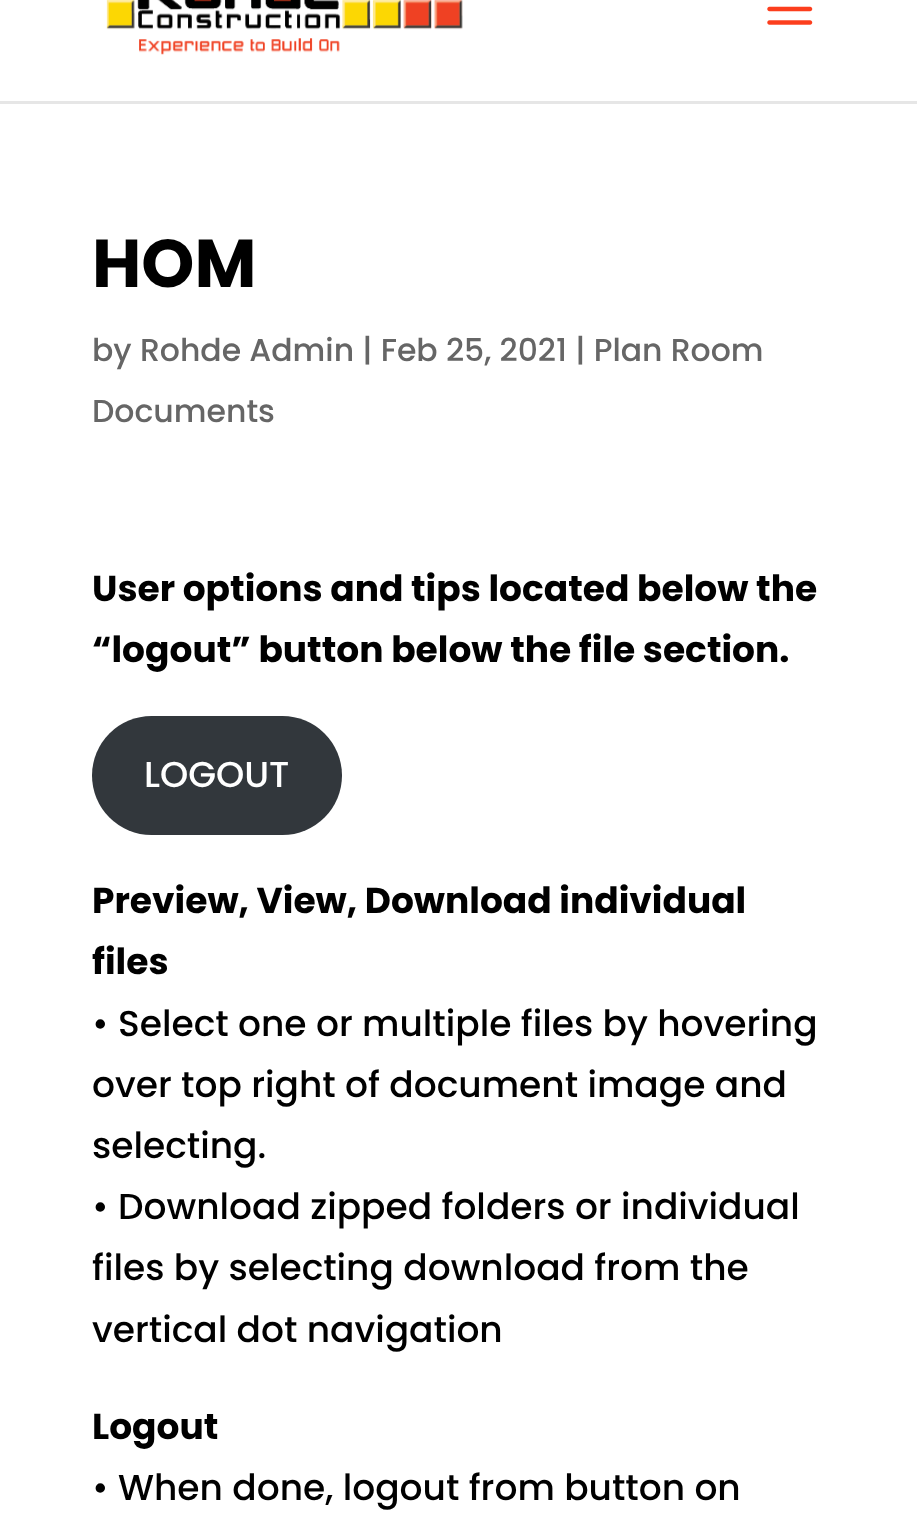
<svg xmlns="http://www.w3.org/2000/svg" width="917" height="1527">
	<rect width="100%" height="100%" fill="#FFFFFF" />
	<rect x="0" y="101" width="917" height="3" fill="#E6E6E6" />
	<image x="106" y="0" width="357" height="55" href="assets/img1.png" />
	<image x="767" y="6" width="46" height="19" href="assets/img2.png" />
	<text x="92" y="287" font-family="Poppins" font-size="67.5" font-weight="700" fill="#000000">HOM</text>
	<g font-family="Poppins" font-size="31.5" font-weight="500" fill="#666666">
		<text x="92" y="361">by Rohde Admin | Feb 25, 2021 | Plan Room</text>
		<text x="92" y="422">Documents</text>
	</g>
	<g font-family="Poppins" font-size="36" font-weight="700" fill="#000000">
		<text x="92" y="601">User options and tips located below the</text>
		<text x="92" y="662">“logout” button below the file section.</text>
	</g>
	<rect x="92" y="716" width="250" height="119" rx="59.5" fill="#32373C" />
	<text x="144" y="787" font-family="Poppins" font-size="36" font-weight="500" fill="#FFFFFF">LOGOUT</text>
	<g font-family="Poppins" font-size="36" font-weight="700" fill="#000000">
		<text x="92" y="913">Preview, View, Download individual</text>
		<text x="92" y="974">files</text>
	</g>
	<g font-family="Poppins" font-size="36" font-weight="500" fill="#000000">
		<text x="92" y="1036">• Select one or multiple files by hovering</text>
		<text x="92" y="1097">over top right of document image and</text>
		<text x="92" y="1158">selecting.</text>
		<text x="92" y="1219">• Download zipped folders or individual</text>
		<text x="92" y="1280">files by selecting download from the</text>
		<text x="92" y="1342">vertical dot navigation</text>
	</g>
	<text x="92" y="1439" font-family="Poppins" font-size="36" font-weight="700" fill="#000000">Logout</text>
	<text x="92" y="1500" font-family="Poppins" font-size="36" font-weight="500" fill="#000000">• When done, logout from button on</text>
</svg>
